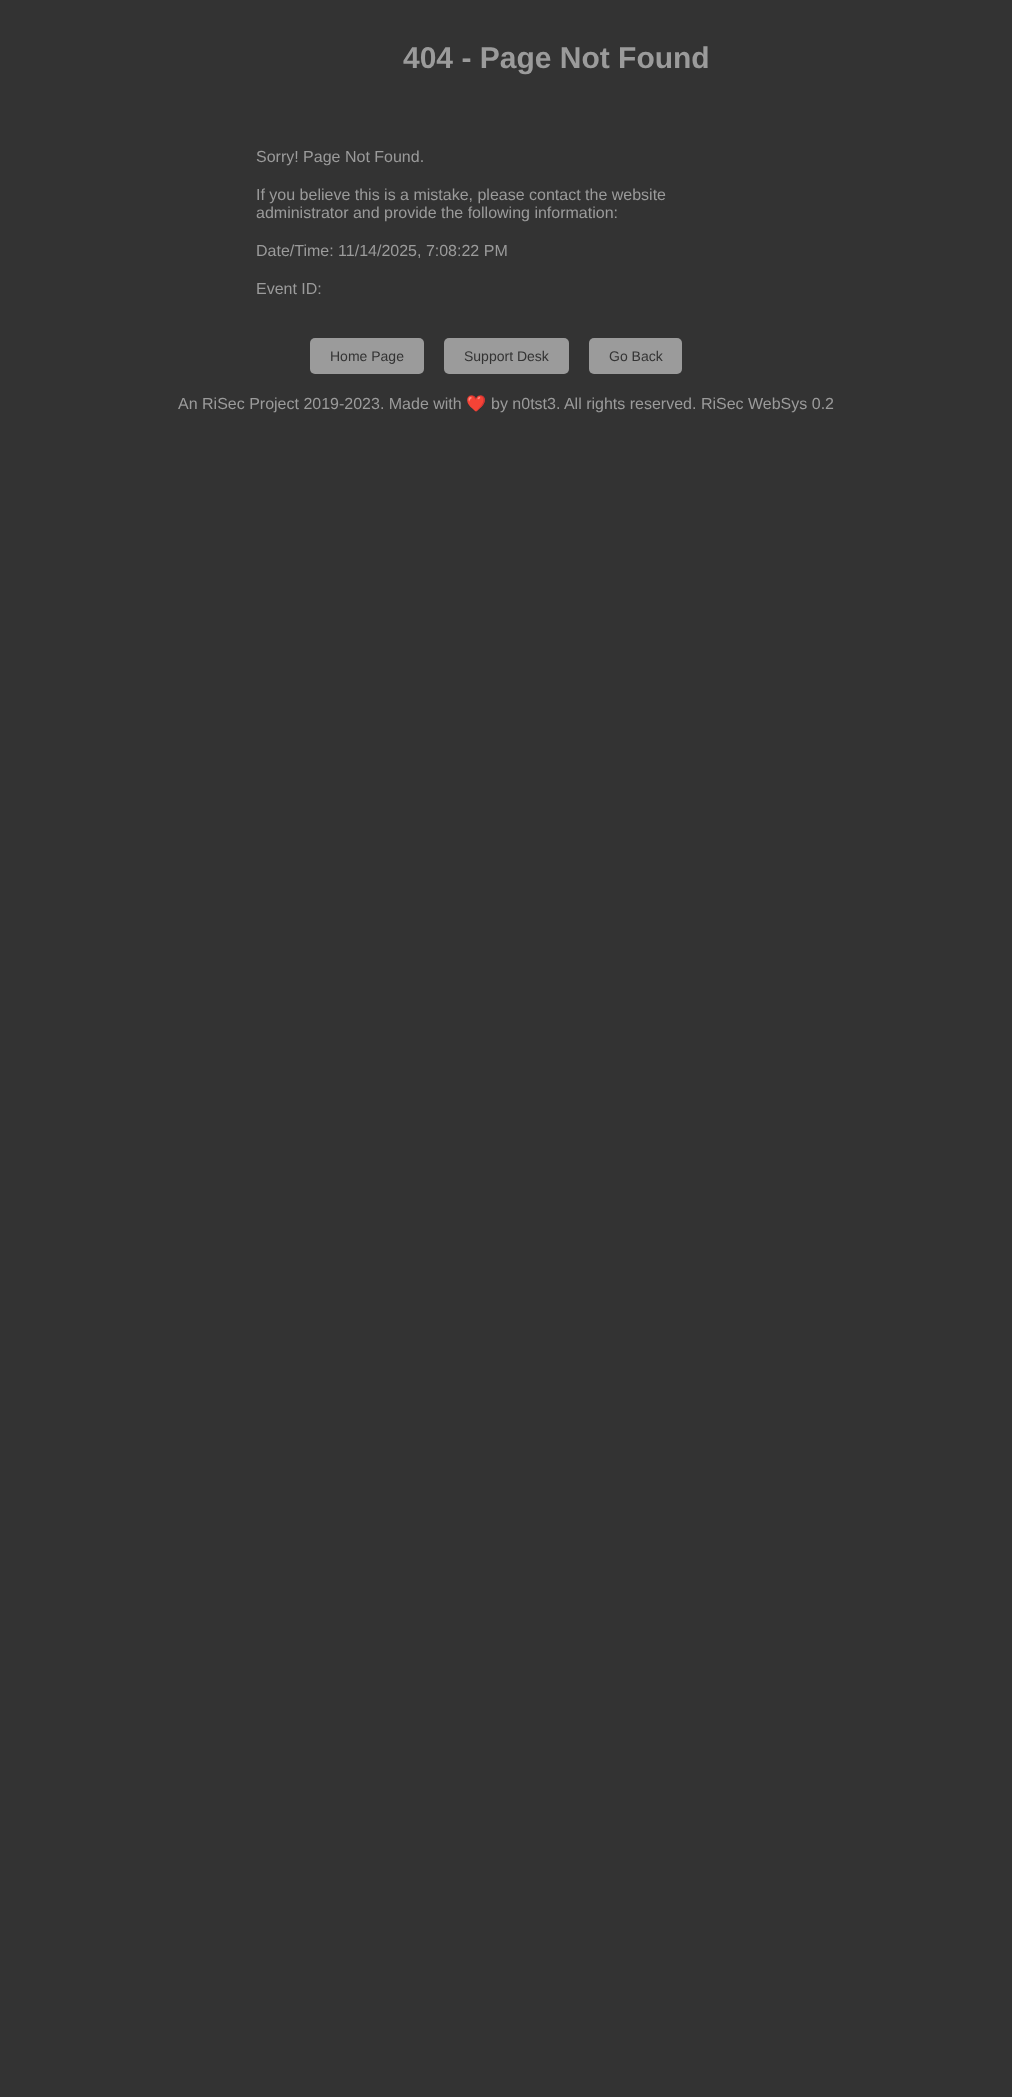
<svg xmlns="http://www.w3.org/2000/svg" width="1012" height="2097">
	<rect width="100%" height="100%" fill="#333333" />
	<text x="403" y="68" font-family="Liberation Sans" font-size="30" font-weight="700" fill="#9B9B9B">404 - Page Not Found</text>
	<g font-family="Liberation Sans" font-size="16" fill="#9B9B9B">
		<text x="256" y="162">Sorry! Page Not Found.</text>
		<text x="256" y="200">If you believe this is a mistake, please contact the website</text>
		<text x="256" y="218">administrator and provide the following information:</text>
		<text x="256" y="256">Date/Time: 11/14/2025, 7:08:22 PM</text>
		<text x="256" y="294">Event ID:</text>
	</g>
	<rect x="310" y="338" width="114" height="36" rx="5" fill="#9B9B9B" />
	<text x="330" y="361" font-family="Liberation Sans" font-size="14" fill="#333333">Home Page</text>
	<rect x="444" y="338" width="125" height="36" rx="5" fill="#9B9B9B" />
	<text x="464" y="361" font-family="Liberation Sans" font-size="14" fill="#333333">Support Desk</text>
	<rect x="589" y="338" width="93" height="36" rx="5" fill="#9B9B9B" />
	<text x="609" y="361" font-family="Liberation Sans" font-size="14" fill="#333333">Go Back</text>
	<text x="178" y="409" font-family="Liberation Sans" font-size="16" fill="#9B9B9B">An RiSec Project 2019-2023. Made with</text>
	<text x="466" y="409" font-family="Noto Color Emoji" font-size="16" fill="#FF0000">❤️</text>
	<text x="491" y="409" font-family="Liberation Sans" font-size="16" fill="#9B9B9B">by n0tst3. All rights reserved. RiSec WebSys 0.2</text>
</svg>
